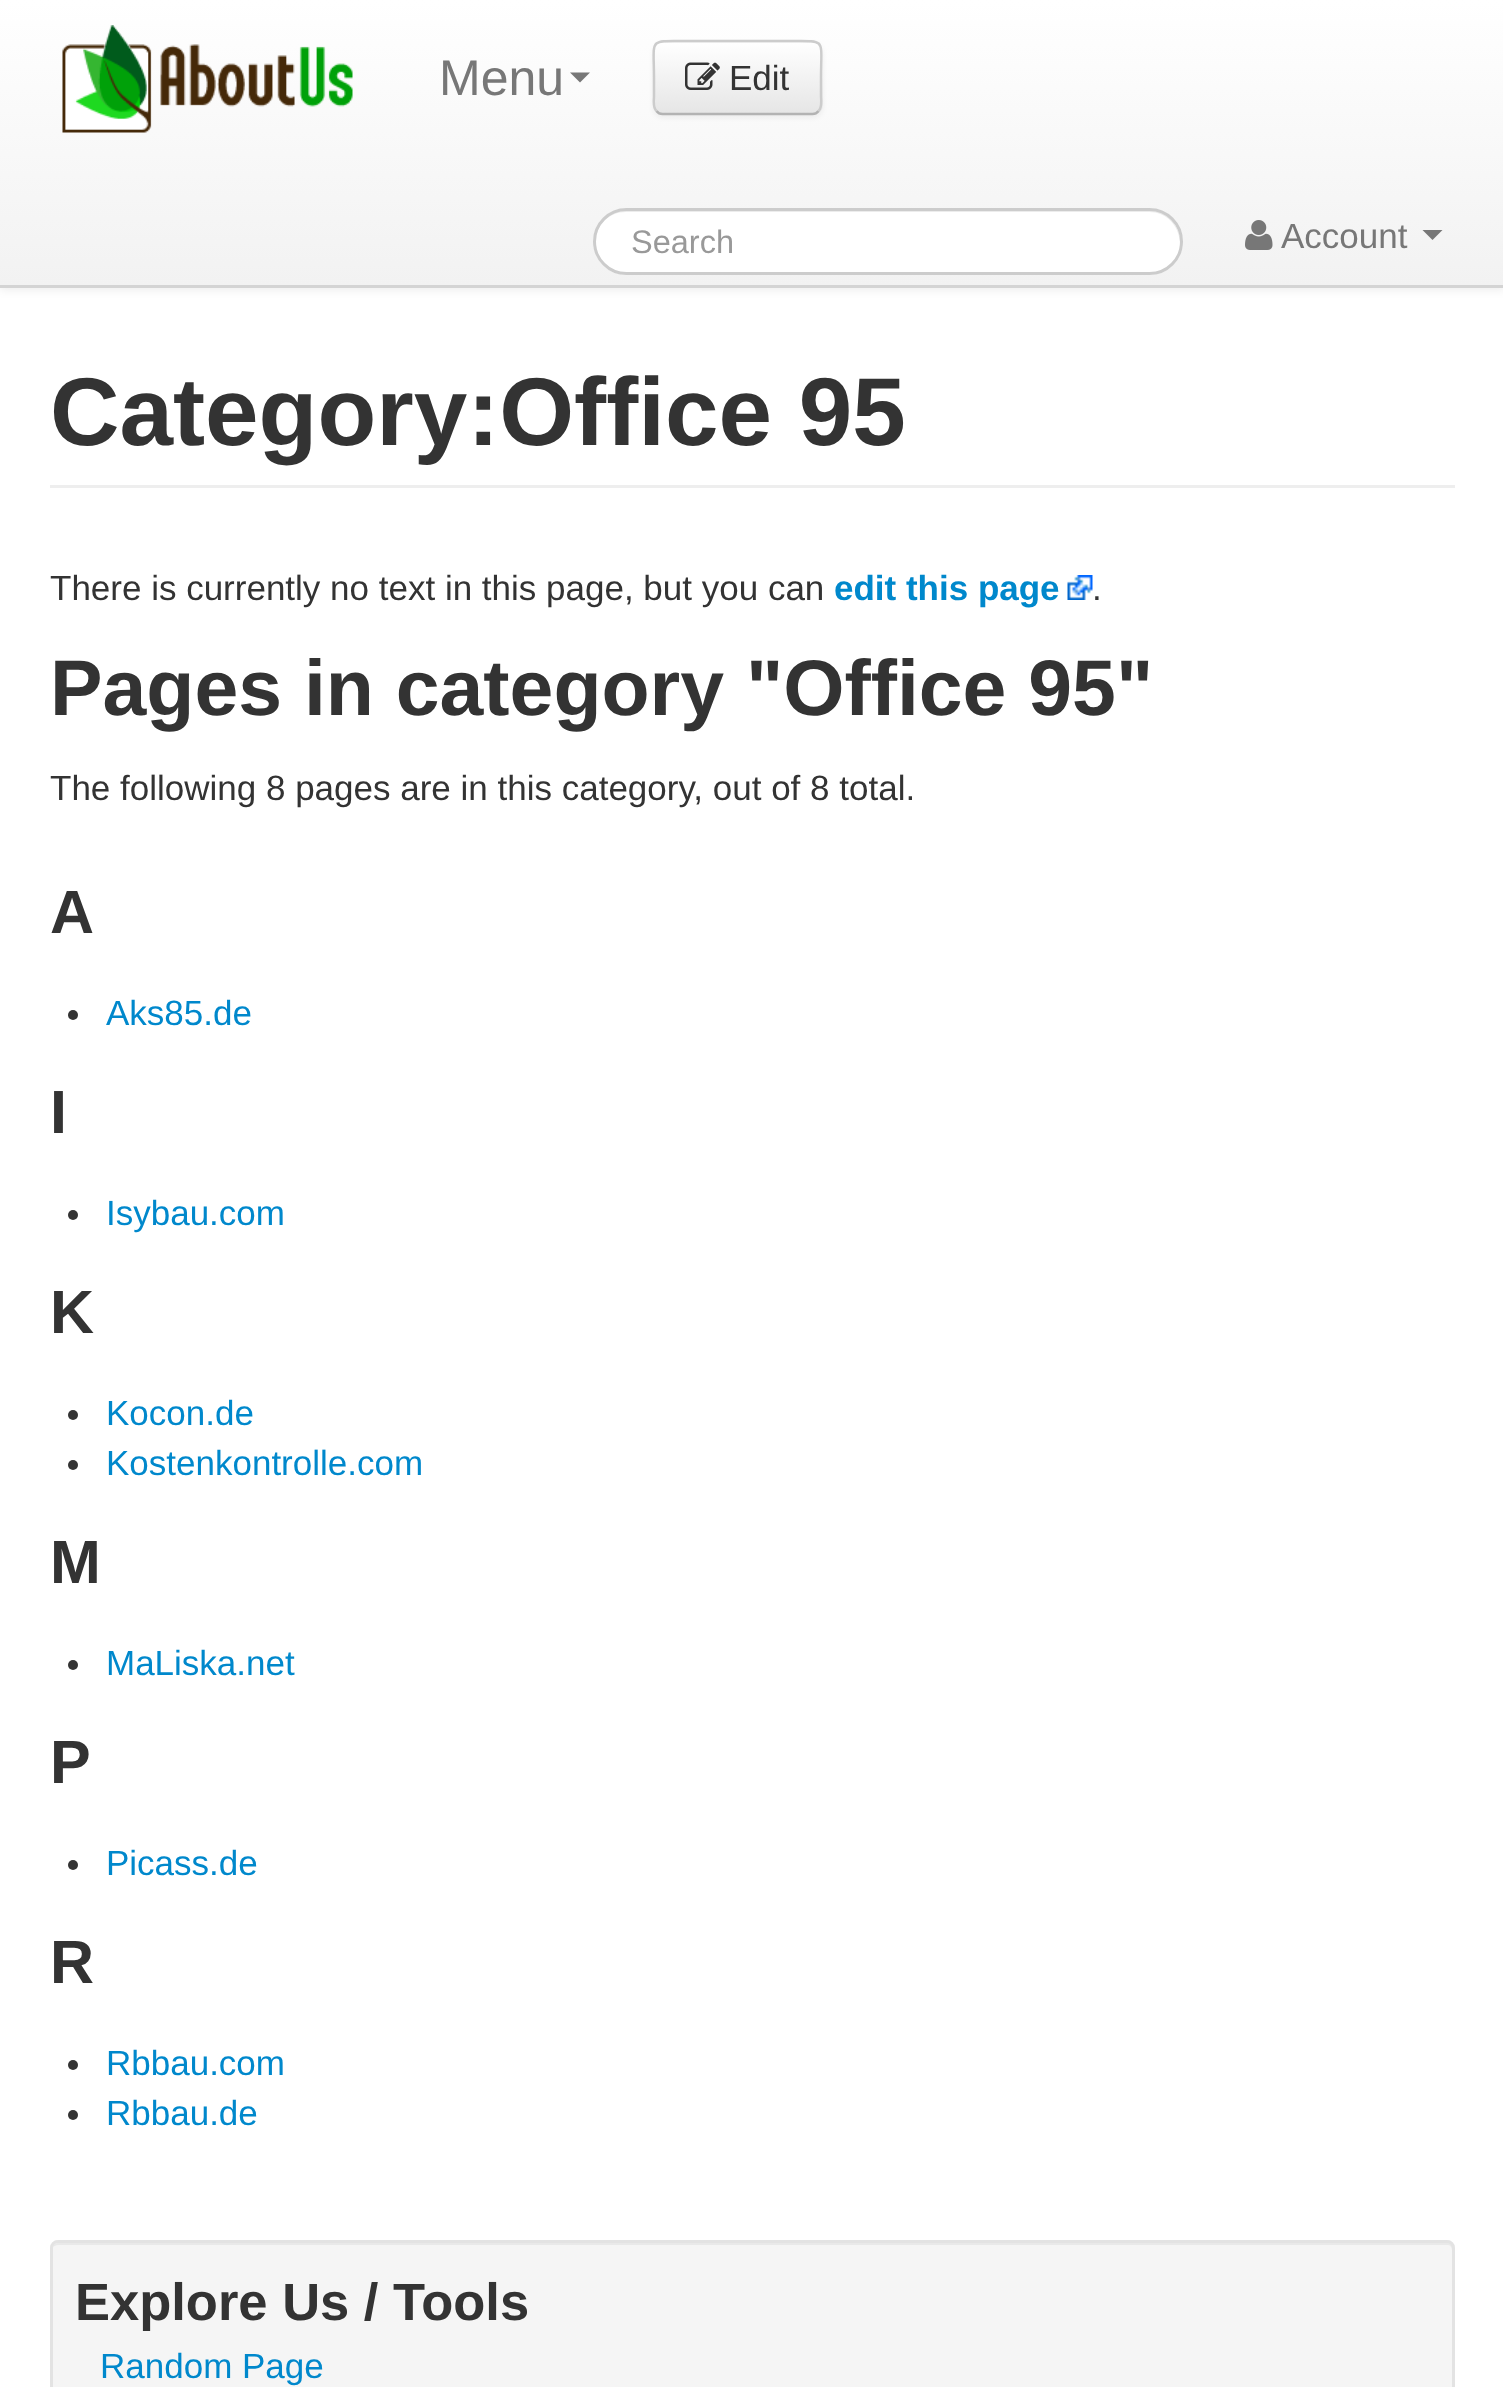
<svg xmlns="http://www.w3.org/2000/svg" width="1503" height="2387">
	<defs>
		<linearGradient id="g1" gradientUnits="userSpaceOnUse" x1="753" y1="0" x2="753" y2="285"><stop offset="0" stop-color="#FFFFFF" /><stop offset="1" stop-color="#F2F2F2" /></linearGradient>
		<clipPath id="clip1"><rect x="653" y="40" width="170" height="75" rx="10" /></clipPath>
		<linearGradient id="g2" gradientUnits="userSpaceOnUse" x1="738" y1="42" x2="738" y2="113"><stop offset="0" stop-color="#FFFFFF" /><stop offset="1" stop-color="#E6E6E6" /></linearGradient>
	</defs>
	<rect width="100%" height="100%" fill="#FFFFFF" />
	<rect x="0" y="3" width="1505" height="287" fill="#000000" fill-opacity="0.07" filter="blur(5px)" />
	<rect x="0" y="0" width="1503" height="285" fill="url(#g1)" />
	<rect x="0" y="285" width="1503" height="3" fill="#D4D4D4" />
	<image x="62" y="25" width="291" height="108" href="assets/img1.png" />
	<text x="439" y="95" font-family="Liberation Sans" font-size="50" fill="#777777">Menu</text>
	<path d="M570 72.5H590L580 82.5Z" fill="#777777" />
	<rect x="653" y="43" width="170" height="75" rx="10" fill="#000000" fill-opacity="0.05" filter="blur(2.5px)" />
	<rect x="653" y="40" width="170" height="75" rx="10" fill="#F5F5F5" />
	<g clip-path="url(#clip1)">
		<rect x="653" y="43" width="170" height="70" fill="url(#g2)" />
	</g>
	<path d="M818.5 111C817 113 815 114 812.5 114H662.5C660 114 658 113 656.5 111" fill="none" stroke="#B3B3B3" stroke-width="2.5" />
	<path d="M656.5 111C652.5 107.5 654 100.5 654 96V77.5C654 37.5 647.5 41 687.5 41H787.5C827.5 41 821 37.5 821 77.5V96C821 100.5 822.5 107.5 818.5 111" fill="none" stroke="#CCCCCC" stroke-width="2.5" />
	<image x="685" y="62" width="35" height="28" href="assets/img2.png" />
	<text x="729" y="90" font-family="Liberation Sans" font-size="35" fill="#333333">Edit</text>
	<rect x="593" y="208" width="590" height="67" rx="33.5" fill="#FFFFFF" />
	<path d="M626 212H1149C1166 212 1179 225 1180 243C1181 225 1166 210 1148 210H626C609 210 594 225 595 243C596 225 609 212 626 212Z" fill="#ECECEC" />
	<rect x="594.5" y="209.5" width="587" height="64" rx="32" fill="none" stroke="#CCCCCC" stroke-width="3" />
	<text x="631" y="253" font-family="Liberation Sans" font-size="32.5" fill="#999999">Search</text>
	<image x="1245" y="220" width="28" height="30" href="assets/img3.png" />
	<text x="1281" y="248" font-family="Liberation Sans" font-size="35" fill="#777777">Account</text>
	<path d="M1422.5 230H1442.5L1432.5 240Z" fill="#777777" />
	<rect x="50" y="485" width="1405" height="3" fill="#EEEEEE" />
	<text x="50" y="445" font-family="Liberation Sans" font-size="96.25" font-weight="700" fill="#333333">Category:Office 95</text>
	<text x="50" y="600" font-family="Liberation Sans" font-size="35" fill="#333333">There is currently no text in this page, but you can</text>
	<text x="834" y="600" font-family="Liberation Sans" font-size="35" font-weight="700" fill="#0088CC">edit this page</text>
	<image x="1067" y="575" width="26" height="25" href="assets/img4.png" />
	<text x="1092" y="600" font-family="Liberation Sans" font-size="35" fill="#333333">.</text>
	<text x="50" y="715" font-family="Liberation Sans" font-size="78.75" font-weight="700" fill="#333333">Pages in category "Office 95"</text>
	<text x="50" y="800" font-family="Liberation Sans" font-size="35" fill="#333333">The following 8 pages are in this category, out of 8 total.</text>
	<text x="50" y="933" font-family="Liberation Sans" font-size="61" font-weight="700" fill="#333333">A</text>
	<circle cx="73" cy="1015" r="5" fill="#333333" />
	<text x="106" y="1025" font-family="Liberation Sans" font-size="35" fill="#0088CC">Aks85.de</text>
	<text x="50" y="1133" font-family="Liberation Sans" font-size="61" font-weight="700" fill="#333333">I</text>
	<circle cx="73" cy="1215" r="5" fill="#333333" />
	<text x="106" y="1225" font-family="Liberation Sans" font-size="35" fill="#0088CC">Isybau.com</text>
	<text x="50" y="1333" font-family="Liberation Sans" font-size="61" font-weight="700" fill="#333333">K</text>
	<circle cx="73" cy="1415" r="5" fill="#333333" />
	<text x="106" y="1425" font-family="Liberation Sans" font-size="35" fill="#0088CC">Kocon.de</text>
	<circle cx="73" cy="1465" r="5" fill="#333333" />
	<text x="106" y="1475" font-family="Liberation Sans" font-size="35" fill="#0088CC">Kostenkontrolle.com</text>
	<text x="50" y="1583" font-family="Liberation Sans" font-size="61" font-weight="700" fill="#333333">M</text>
	<circle cx="73" cy="1665" r="5" fill="#333333" />
	<text x="106" y="1675" font-family="Liberation Sans" font-size="35" fill="#0088CC">MaLiska.net</text>
	<text x="50" y="1783" font-family="Liberation Sans" font-size="61" font-weight="700" fill="#333333">P</text>
	<circle cx="73" cy="1865" r="5" fill="#333333" />
	<text x="106" y="1875" font-family="Liberation Sans" font-size="35" fill="#0088CC">Picass.de</text>
	<text x="50" y="1983" font-family="Liberation Sans" font-size="61" font-weight="700" fill="#333333">R</text>
	<circle cx="73" cy="2065" r="5" fill="#333333" />
	<text x="106" y="2075" font-family="Liberation Sans" font-size="35" fill="#0088CC">Rbbau.com</text>
	<circle cx="73" cy="2115" r="5" fill="#333333" />
	<text x="106" y="2125" font-family="Liberation Sans" font-size="35" fill="#0088CC">Rbbau.de</text>
	<rect x="50" y="2240" width="1405" height="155" rx="8" fill="#F5F5F5" />
	<path d="M58 2245H1448C1450 2245 1452 2247 1452 2250V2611C1453 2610 1453 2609 1453 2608V2248C1453 2245 1451 2243 1448 2243H58C56 2243 53 2245 53 2247C54 2246 56 2245 58 2245Z" fill="#E9E9E9" />
	<rect x="51.5" y="2241.5" width="1402" height="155" rx="6.5" fill="none" stroke="#E3E3E3" stroke-width="3" />
	<text x="75" y="2320" font-family="Liberation Sans" font-size="52.5" font-weight="700" fill="#333333">Explore Us / Tools</text>
	<text x="100" y="2378" font-family="Liberation Sans" font-size="35" fill="#0088CC">Random Page</text>
</svg>
